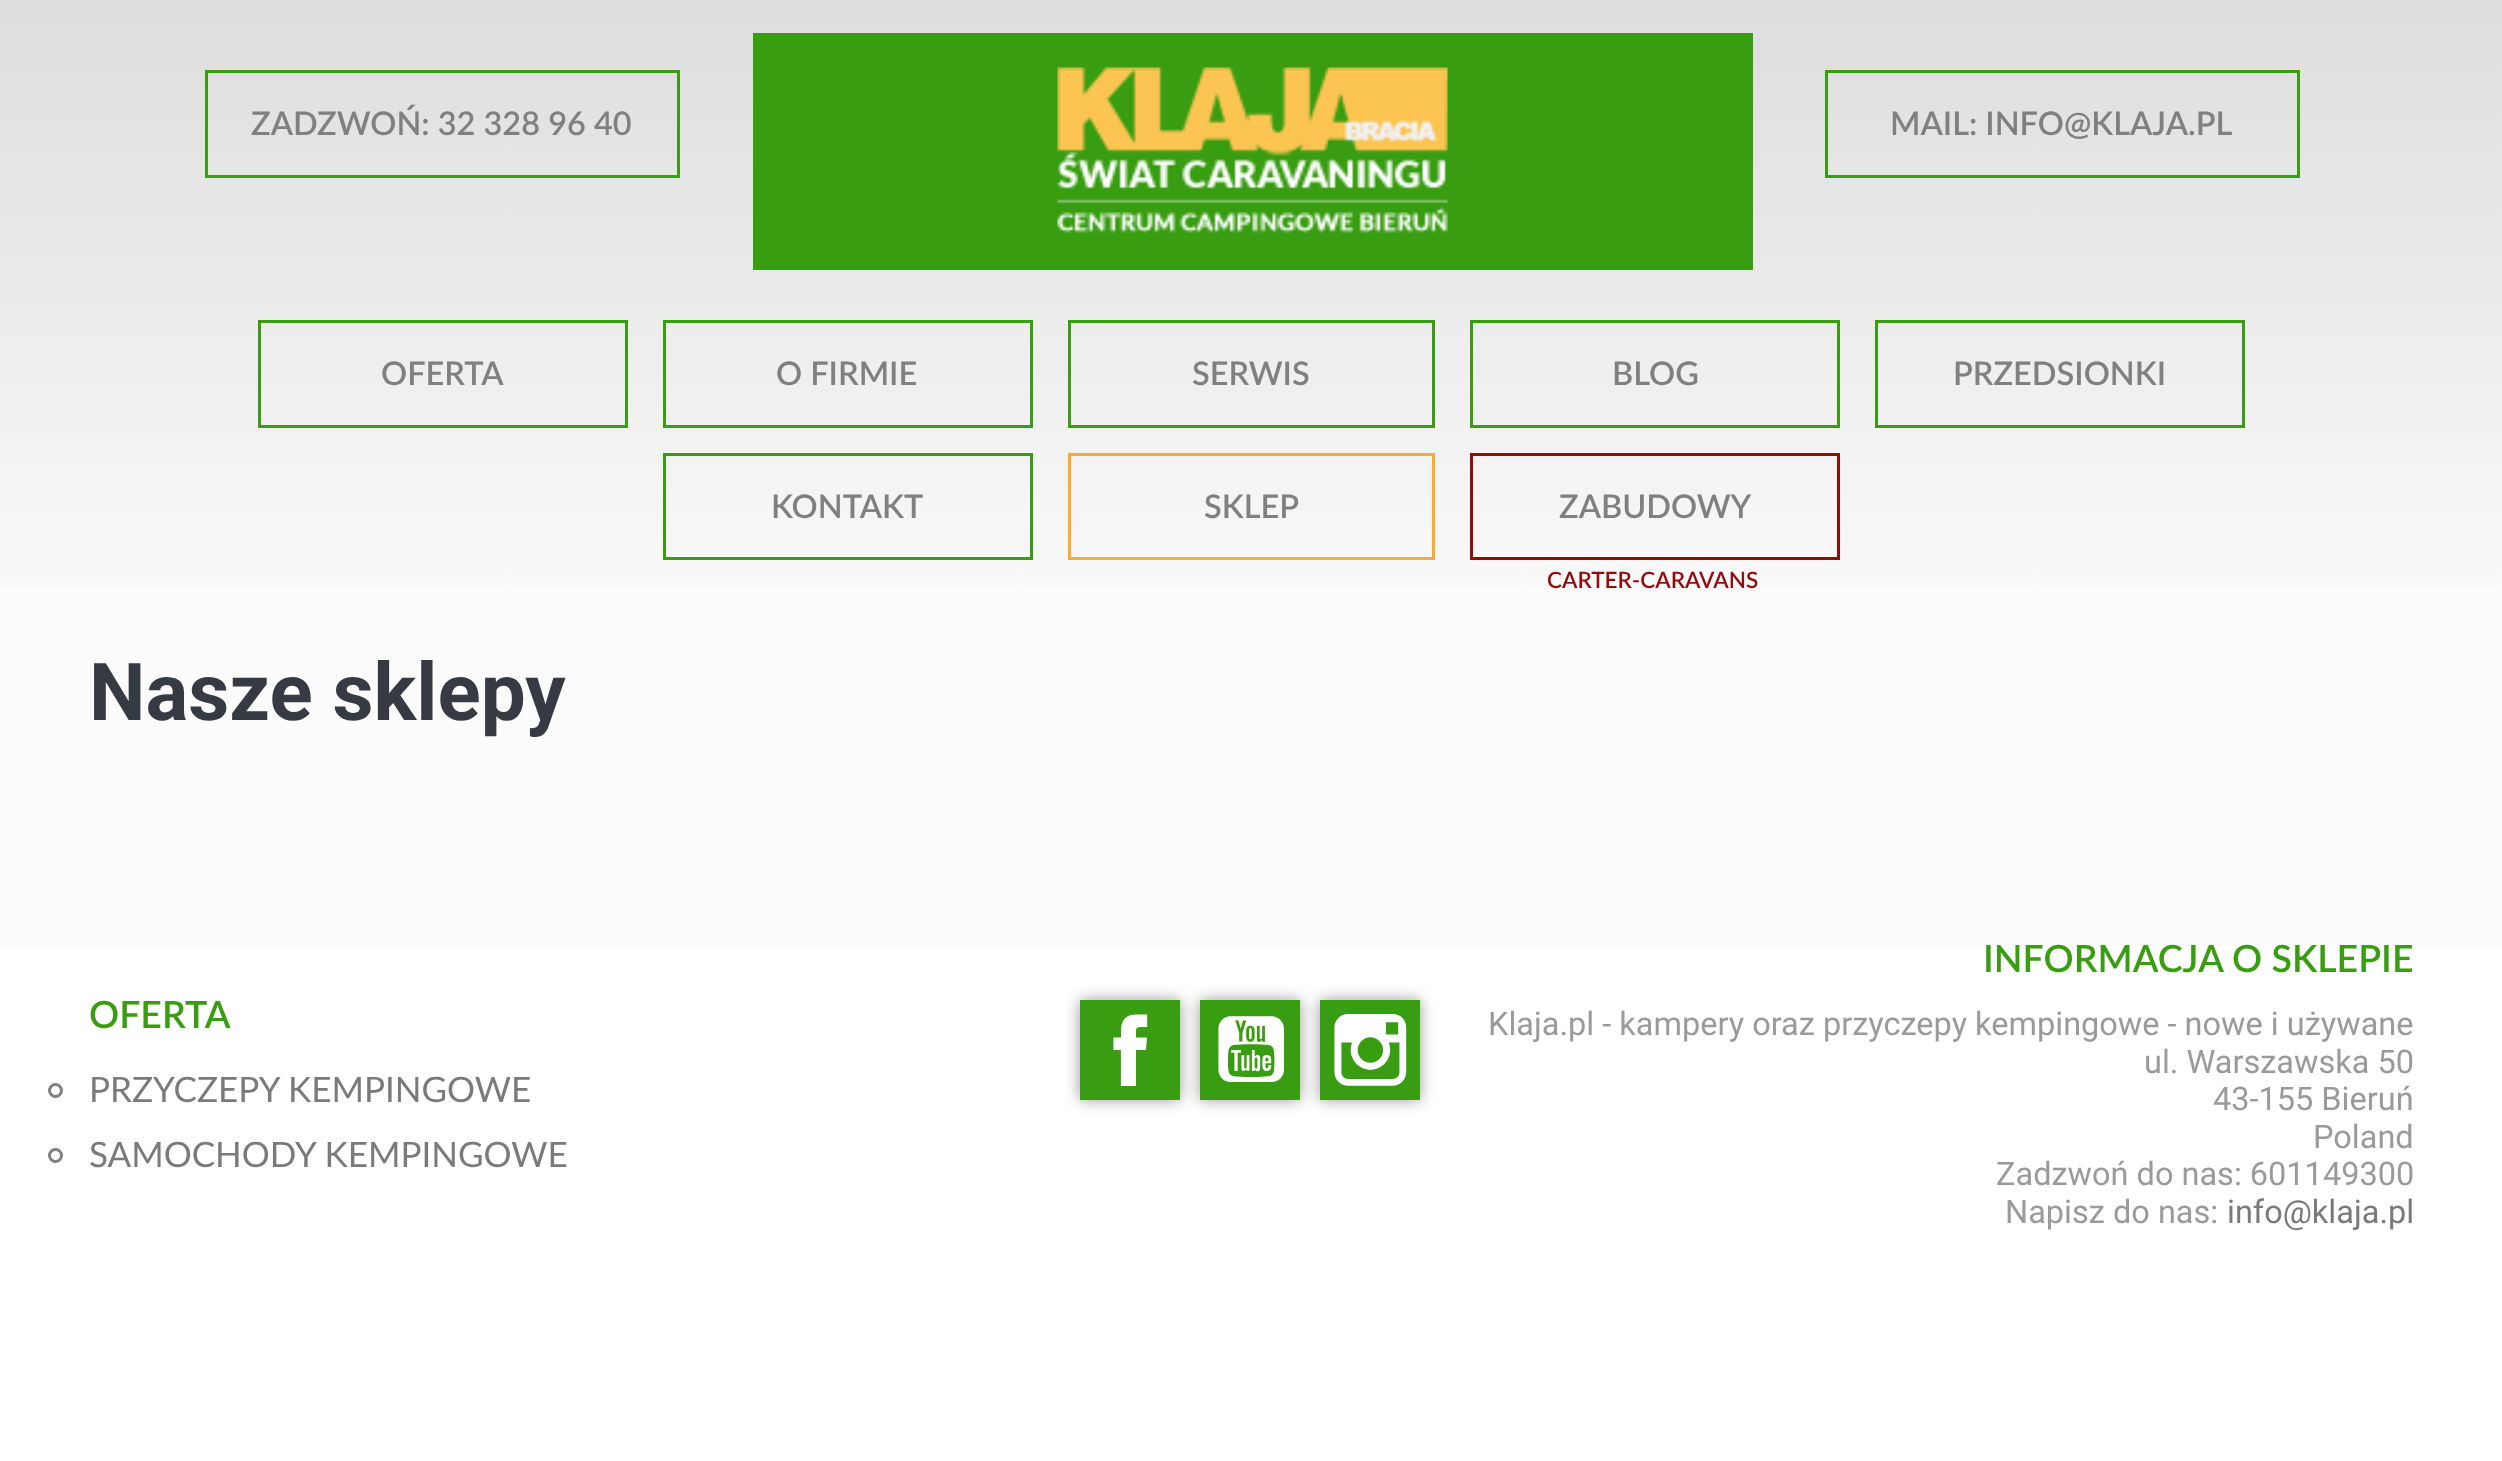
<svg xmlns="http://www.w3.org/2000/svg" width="2502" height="1461">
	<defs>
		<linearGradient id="g1" gradientUnits="userSpaceOnUse" x1="1251" y1="0" x2="1251" y2="713"><stop offset="0" stop-color="#DDDDDD" /><stop offset="1" stop-color="#FFFFFF" /></linearGradient>
		<clipPath id="clip1"><path d="M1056 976H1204V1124H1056ZM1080 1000H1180V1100H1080Z" clip-rule="evenodd" /></clipPath>
		<clipPath id="clip2"><path d="M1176 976H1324V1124H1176ZM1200 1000H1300V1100H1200Z" clip-rule="evenodd" /></clipPath>
		<clipPath id="clip3"><path d="M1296 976H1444V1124H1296ZM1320 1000H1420V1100H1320Z" clip-rule="evenodd" /></clipPath>
	</defs>
	<rect width="100%" height="100%" fill="#FFFFFF" />
	<rect x="0" y="0" width="2502" height="588" fill="url(#g1)" />
	<rect x="753" y="33" width="1000" height="237" fill="#389D11" />
	<image x="1057" y="67" width="391" height="166" href="assets/img1.png" />
	<rect x="206.5" y="71.5" width="472" height="105" fill="none" stroke="#389D11" stroke-width="3" />
	<text x="251" y="135" font-family="Lato" font-size="32.5" font-weight="600" fill="#808080">ZADZWOŃ: 32 328 96 40</text>
	<rect x="1826.5" y="71.5" width="472" height="105" fill="none" stroke="#389D11" stroke-width="3" />
	<text x="1890" y="135" font-family="Lato" font-size="32.5" font-weight="600" fill="#808080">MAIL: INFO@KLAJA.PL</text>
	<rect x="259.5" y="321.5" width="367" height="105" fill="none" stroke="#389D11" stroke-width="3" />
	<text x="381" y="385" font-family="Lato" font-size="32.5" font-weight="600" fill="#808080">OFERTA</text>
	<rect x="664.5" y="321.5" width="367" height="105" fill="none" stroke="#389D11" stroke-width="3" />
	<text x="776" y="385" font-family="Lato" font-size="32.5" font-weight="600" fill="#808080">O FIRMIE</text>
	<rect x="1069.5" y="321.5" width="364" height="105" fill="none" stroke="#389D11" stroke-width="3" />
	<text x="1192" y="385" font-family="Lato" font-size="32.5" font-weight="600" fill="#808080">SERWIS</text>
	<rect x="1471.5" y="321.5" width="367" height="105" fill="none" stroke="#389D11" stroke-width="3" />
	<text x="1612" y="385" font-family="Lato" font-size="32.5" font-weight="600" fill="#808080">BLOG</text>
	<rect x="1876.5" y="321.5" width="367" height="105" fill="none" stroke="#389D11" stroke-width="3" />
	<text x="1953" y="385" font-family="Lato" font-size="32.5" font-weight="600" fill="#808080">PRZEDSIONKI</text>
	<rect x="664.5" y="454.5" width="367" height="104" fill="none" stroke="#389D11" stroke-width="3" />
	<text x="771" y="518" font-family="Lato" font-size="32.5" font-weight="600" fill="#808080">KONTAKT</text>
	<rect x="1069.5" y="454.5" width="364" height="104" fill="none" stroke="#FCAB2A" stroke-width="3" />
	<text x="1204" y="518" font-family="Lato" font-size="32.5" font-weight="600" fill="#808080">SKLEP</text>
	<rect x="1471.5" y="454.5" width="367" height="104" fill="none" stroke="#950B0B" stroke-width="3" />
	<text x="1559" y="518" font-family="Lato" font-size="32.5" font-weight="600" fill="#808080">ZABUDOWY</text>
	<rect x="0" y="588" width="2502" height="357" fill="#FBFBFB" />
	<text x="1547" y="588" font-family="Lato" font-size="22.5" font-weight="600" fill="#950B0B">CARTER-CARAVANS</text>
	<text x="89" y="720" font-family="Roboto" font-size="80" font-weight="700" fill="#363A42">Nasze sklepy</text>
	<text x="89" y="1028" font-family="Lato" font-size="37.5" font-weight="600" fill="#389D11">OFERTA</text>
	<circle cx="55.5" cy="1090.5" r="6" fill="none" stroke="#808080" stroke-width="3" />
	<text x="89" y="1102" font-family="Lato" font-size="35" fill="#7A7A7A">PRZYCZEPY KEMPINGOWE</text>
	<circle cx="55.5" cy="1155.5" r="6" fill="none" stroke="#808080" stroke-width="3" />
	<text x="89" y="1167" font-family="Lato" font-size="35" fill="#7A7A7A">SAMOCHODY KEMPINGOWE</text>
	<text x="1983" y="972" font-family="Lato" font-size="37.5" font-weight="600" fill="#389D11">INFORMACJA O SKLEPIE</text>
	<g font-family="Roboto" font-size="32.5" fill="#9A9A9A">
		<text x="1488" y="1035">Klaja.pl - kampery oraz przyczepy kempingowe - nowe i używane</text>
		<text x="2144" y="1073">ul. Warszawska 50</text>
		<text x="2213" y="1110">43-155 Bieruń</text>
		<text x="2313" y="1148">Poland</text>
		<text x="1996" y="1185">Zadzwoń do nas: 601149300</text>
		<text x="2005" y="1223">Napisz do nas:</text>
	</g>
	<text x="2227" y="1223" font-family="Roboto" font-size="32.5" fill="#7A7A7A">info@klaja.pl</text>
	<rect x="1080" y="1000" width="100" height="100" fill="#389D11" />
	<image x="1113" y="1014" width="35" height="72" href="assets/img2.png" />
	<rect x="1200" y="1000" width="100" height="100" fill="#389D11" />
	<g clip-path="url(#clip1)">
		<rect x="1080" y="1000" width="100" height="100" fill="#000000" fill-opacity="0.4" filter="blur(7.5px)" />
	</g>
	<image x="1218" y="1016" width="66" height="66" href="assets/img3.png" />
	<rect x="1320" y="1000" width="100" height="100" fill="#389D11" />
	<g clip-path="url(#clip2)">
		<rect x="1200" y="1000" width="100" height="100" fill="#000000" fill-opacity="0.4" filter="blur(7.5px)" />
	</g>
	<image x="1334" y="1014" width="73" height="72" href="assets/img4.png" />
	<g clip-path="url(#clip3)">
		<rect x="1320" y="1000" width="100" height="100" fill="#000000" fill-opacity="0.4" filter="blur(7.5px)" />
	</g>
</svg>
